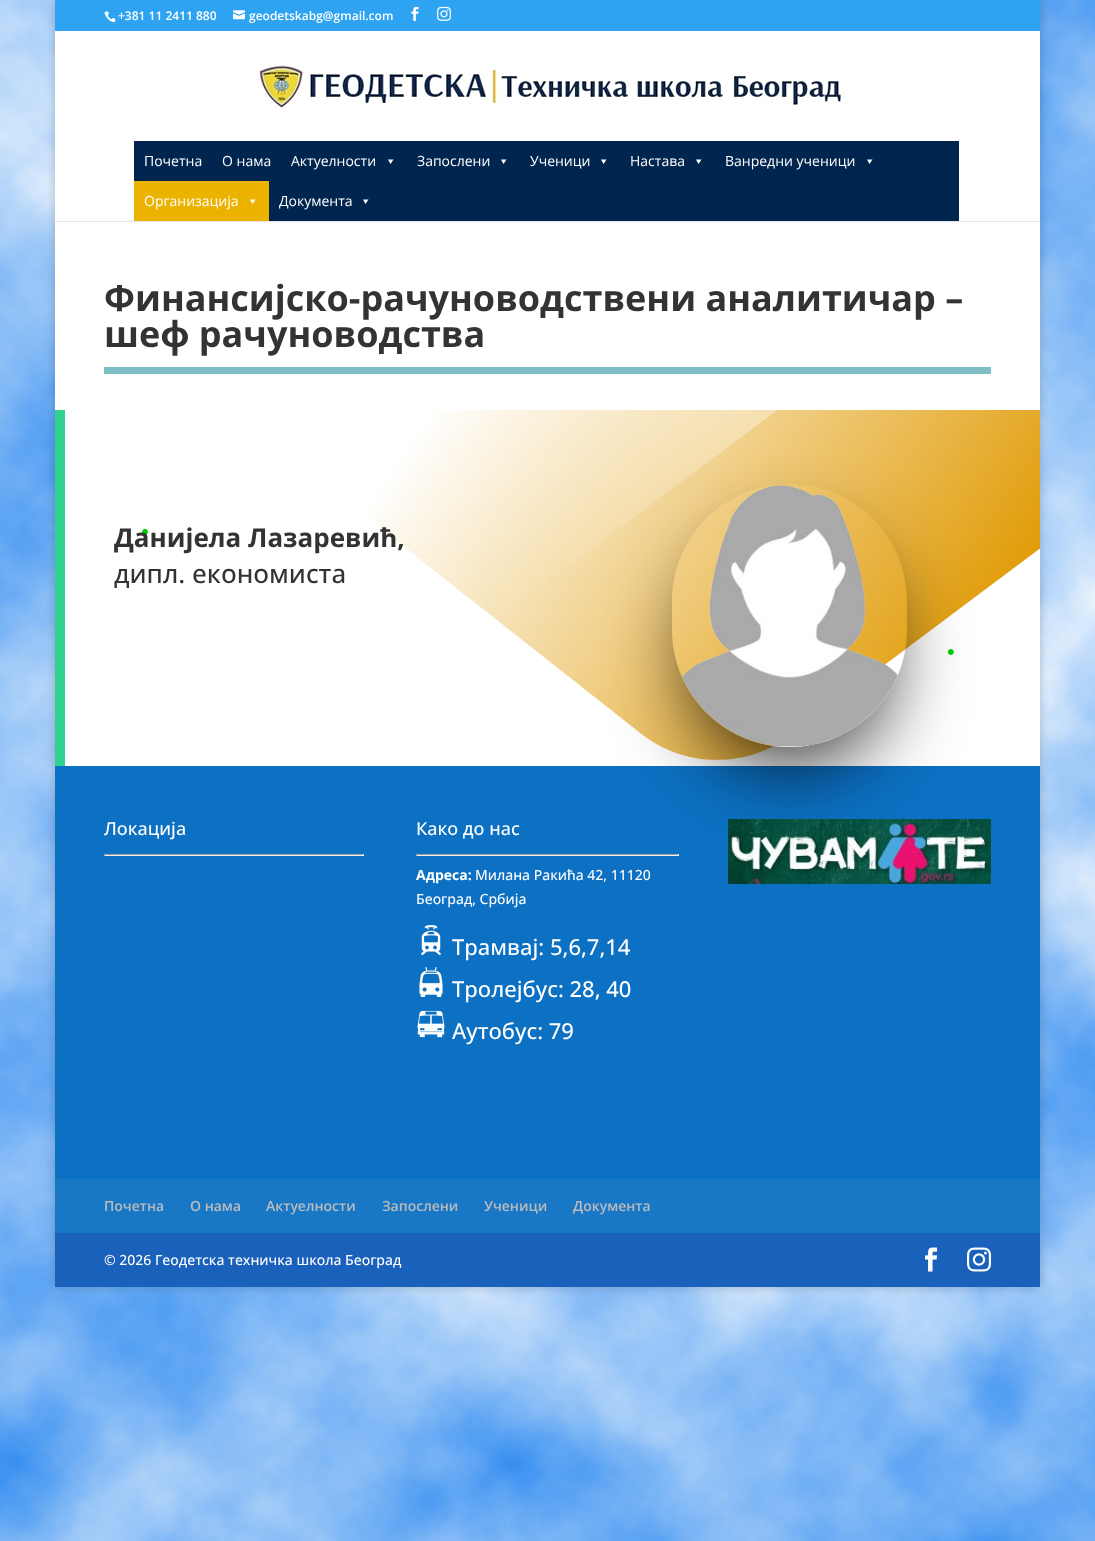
<svg xmlns="http://www.w3.org/2000/svg" width="1095" height="1541">
	<defs>
		<clipPath id="clip1"><path d="M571 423H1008V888H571ZM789.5 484C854.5 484 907 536.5 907 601.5V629.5C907 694.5 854.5 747 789.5 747C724.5 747 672 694.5 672 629.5V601.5C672 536.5 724.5 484 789.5 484Z" clip-rule="evenodd" /></clipPath>
	</defs>
	<rect width="100%" height="100%" fill="#FFFFFF" />
	<image x="0" y="0" width="1095" height="1541" href="assets/img1.png" />
	<rect x="55" y="0" width="985" height="1287" fill="#000000" fill-opacity="0.2" filter="blur(5px)" />
	<rect x="55" y="0" width="985" height="31" fill="#2EA3F2" />
	<image x="104" y="11" width="12" height="12" href="assets/img2.png" />
	<text x="118" y="20" font-family="Open Sans" font-size="12" font-weight="600" fill="#FFFFFF">+381 11 2411 880</text>
	<image x="233" y="10" width="12" height="10" href="assets/img3.png" />
	<text x="249" y="20" font-family="Open Sans" font-size="12" font-weight="600" fill="#FFFFFF">geodetskabg@gmail.com</text>
	<image x="411" y="6" width="8" height="15" href="assets/img4.png" />
	<image x="437" y="6" width="14" height="15" href="assets/img5.png" />
	<rect x="55" y="221" width="985" height="1" fill="#E6E6E6" />
	<rect x="55" y="31" width="985" height="190" fill="#FFFFFF" />
	<image x="256" y="65" width="589" height="43" href="assets/img6.png" />
	<rect x="134" y="141" width="825" height="80" fill="#00254E" />
	<g font-family="Open Sans" font-size="14" fill="#FFFFFF">
		<text x="144" y="166">Почетна</text>
		<text x="222" y="166">О нама</text>
		<text x="291" y="166">Актуелности</text>
	</g>
	<path d="M393.5 159.5L390.5 164L388 159.5Z" fill="#FFFFFF" />
	<text x="417" y="166" font-family="Open Sans" font-size="14" fill="#FFFFFF">Запослени</text>
	<path d="M506.5 159.5L503.5 164L501 159.5Z" fill="#FFFFFF" />
	<text x="530" y="166" font-family="Open Sans" font-size="14" fill="#FFFFFF">Ученици</text>
	<path d="M606.5 159.5L603.5 164L601 159.5Z" fill="#FFFFFF" />
	<text x="630" y="166" font-family="Open Sans" font-size="14" fill="#FFFFFF">Настава</text>
	<path d="M701.5 159.5L698.5 164L696 159.5Z" fill="#FFFFFF" />
	<text x="725" y="166" font-family="Open Sans" font-size="14" fill="#FFFFFF">Ванредни ученици</text>
	<path d="M872.5 159.5L869.5 164L867 159.5Z" fill="#FFFFFF" />
	<rect x="134" y="181" width="135" height="40" fill="#ECB200" />
	<text x="144" y="206" font-family="Open Sans" font-size="14" fill="#FFFFFF">Организација</text>
	<path d="M255.5 199.5L252.5 204L250 199.5Z" fill="#FFFFFF" />
	<text x="279" y="206" font-family="Open Sans" font-size="14" fill="#FFFFFF">Документа</text>
	<path d="M368.5 199.5L365.5 204L363 199.5Z" fill="#FFFFFF" />
	<rect x="55" y="222" width="985" height="188" fill="#FFFFFF" />
	<g font-family="Open Sans" font-size="36" font-weight="700" fill="#333333">
		<text x="104" y="311">Финансијско-рачуноводствени аналитичар –</text>
		<text x="104" y="347">шеф рачуноводства</text>
	</g>
	<rect x="104" y="367" width="887" height="7" fill="#7EBEC5" />
	<rect x="65" y="410" width="975" height="356" fill="#FFFFFF" />
	<image x="141" y="410" width="899" height="350" href="assets/img7.png" />
	<rect x="55" y="410" width="10" height="356" fill="#31D190" />
	<text x="114" y="547" font-family="Open Sans" font-size="26" font-weight="700" fill="#333333">Данијела Лазаревић,</text>
	<text x="114" y="583" font-family="Open Sans" font-size="26" font-weight="500" fill="#333333">дипл. економиста</text>
	<rect x="55" y="766" width="985" height="413" fill="#0C71C3" />
	<rect x="416" y="854" width="263" height="1" fill="#9F9F9F" />
	<rect x="678" y="854" width="1" height="2" fill="#EEEEEE" />
	<rect x="416" y="855" width="263" height="1" fill="#EEEEEE" />
	<image x="728" y="819" width="263" height="65" href="assets/img12.png" />
	<g clip-path="url(#clip1)">
		<rect x="692" y="544" width="195" height="223" rx="97.5" fill="#000000" fill-opacity="0.8" filter="blur(40px)" />
	</g>
	<image x="682" y="485" width="216" height="262" href="assets/img8.png" />
	<text x="104" y="835" font-family="Open Sans" font-size="18" font-weight="500" fill="#FFFFFF">Локација</text>
	<rect x="104" y="854" width="260" height="1" fill="#9F9F9F" />
	<rect x="363" y="854" width="1" height="2" fill="#EEEEEE" />
	<rect x="104" y="855" width="260" height="1" fill="#EEEEEE" />
	<rect x="104" y="854" width="1" height="2" fill="#9F9F9F" />
	<text x="416" y="835" font-family="Open Sans" font-size="18" font-weight="500" fill="#FFFFFF">Како до нас</text>
	<rect x="416" y="854" width="1" height="2" fill="#9F9F9F" />
	<text x="416" y="880" font-family="Open Sans" font-size="14" font-weight="700" fill="#FFFFFF">Адреса:</text>
	<g font-family="Open Sans" font-size="14" font-weight="500" fill="#FFFFFF">
		<text x="475" y="880">Милана Ракића 42, 11120</text>
		<text x="416" y="904">Београд, Србија</text>
	</g>
	<image x="421" y="925" width="20" height="30" href="assets/img9.png" />
	<text x="452" y="955" font-family="Open Sans" font-size="22" font-weight="500" fill="#FFFFFF">Трамвај: 5,6,7,14</text>
	<image x="419" y="967" width="24" height="30" href="assets/img10.png" />
	<text x="452" y="997" font-family="Open Sans" font-size="22" font-weight="500" fill="#FFFFFF">Тролејбус: 28, 40</text>
	<image x="417" y="1010" width="28" height="28" href="assets/img11.png" />
	<text x="452" y="1039" font-family="Open Sans" font-size="22" font-weight="500" fill="#FFFFFF">Аутобус: 79</text>
	<rect x="55" y="1179" width="985" height="54" fill="#1878C6" />
	<g font-family="Open Sans" font-size="14" font-weight="600" fill="#BBBBBB">
		<text x="104" y="1211">Почетна</text>
		<text x="190" y="1211">О нама</text>
		<text x="266" y="1211">Актуелности</text>
		<text x="382" y="1211">Запослени</text>
		<text x="484" y="1211">Ученици</text>
		<text x="573" y="1211">Документа</text>
	</g>
	<rect x="55" y="1233" width="985" height="54" fill="#1A61BB" />
	<text x="104" y="1265" font-family="Open Sans" font-size="14" font-weight="500" fill="#FFFFFF">© 2026 Геодетска техничка школа Београд</text>
	<image x="925" y="1247" width="13" height="25" href="assets/img13.png" />
	<image x="967" y="1247" width="24" height="25" href="assets/img14.png" />
</svg>
